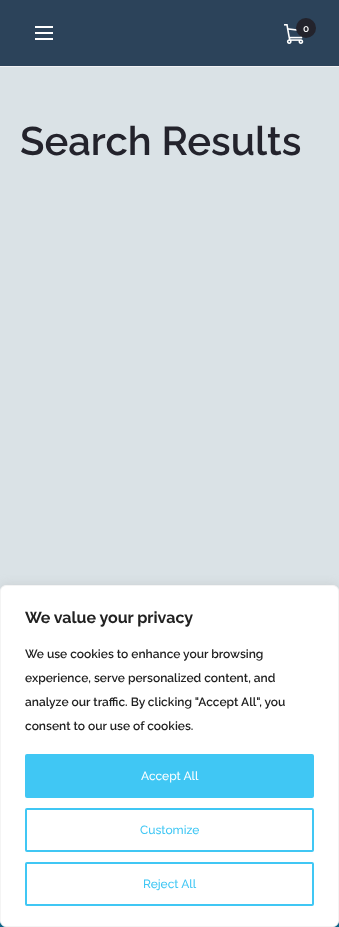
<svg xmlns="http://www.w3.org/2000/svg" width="339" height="927">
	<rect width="100%" height="100%" fill="#DAE2E6" />
	<rect x="0" y="0" width="339" height="66" fill="#2C435A" />
	<rect x="0" y="66" width="339" height="1" fill="#F1F2F4" />
	<rect x="35" y="32" width="18" height="2" fill="#FFFFFF" />
	<rect x="35" y="26" width="18" height="2" fill="#FFFFFF" />
	<rect x="35" y="38" width="18" height="2" fill="#FFFFFF" />
	<image x="284" y="24" width="20" height="20" href="assets/img1.png" />
	<circle cx="306" cy="28" r="10" fill="#23232C" />
	<text x="303" y="32" font-family="'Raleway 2'" font-size="10" font-weight="600" fill="#FFFFFF">0</text>
	<text x="20" y="155" font-family="Raleway" font-size="40" font-weight="600" fill="#23232C">Search Results</text>
	<rect x="0" y="921" width="339" height="6" fill="#005D85" />
	<rect x="0" y="584" width="339" height="342" rx="6" fill="#ACABAB" fill-opacity="0.3" filter="blur(5px)" />
	<rect x="0.5" y="585.5" width="338" height="341" rx="5.5" fill="#FFFFFF" stroke="#F4F4F4" />
	<text x="25" y="623" font-family="Raleway" font-size="16" font-weight="700" fill="#212121">We value your privacy</text>
	<g font-family="Raleway" font-size="12" font-weight="600" fill="#212121">
		<text x="25" y="658">We use cookies to enhance your browsing</text>
		<text x="25" y="682">experience, serve personalized content, and</text>
		<text x="25" y="706">analyze our traffic. By clicking "Accept All", you</text>
		<text x="25" y="730">consent to our use of cookies.</text>
	</g>
	<rect x="26" y="755" width="287" height="42" rx="1" fill="#40C7F4" stroke="#40C7F4" stroke-width="2" />
	<text x="141" y="780" font-family="Raleway" font-size="12" font-weight="500" fill="#FFFFFF">Accept All</text>
	<rect x="26" y="809" width="287" height="42" rx="1" fill="none" stroke="#40C7F4" stroke-width="2" />
	<text x="140" y="834" font-family="Raleway" font-size="12" font-weight="500" fill="#40C7F4">Customize</text>
	<rect x="26" y="863" width="287" height="42" rx="1" fill="none" stroke="#40C7F4" stroke-width="2" />
	<text x="143" y="888" font-family="Raleway" font-size="12" font-weight="500" fill="#40C7F4">Reject All</text>
</svg>
